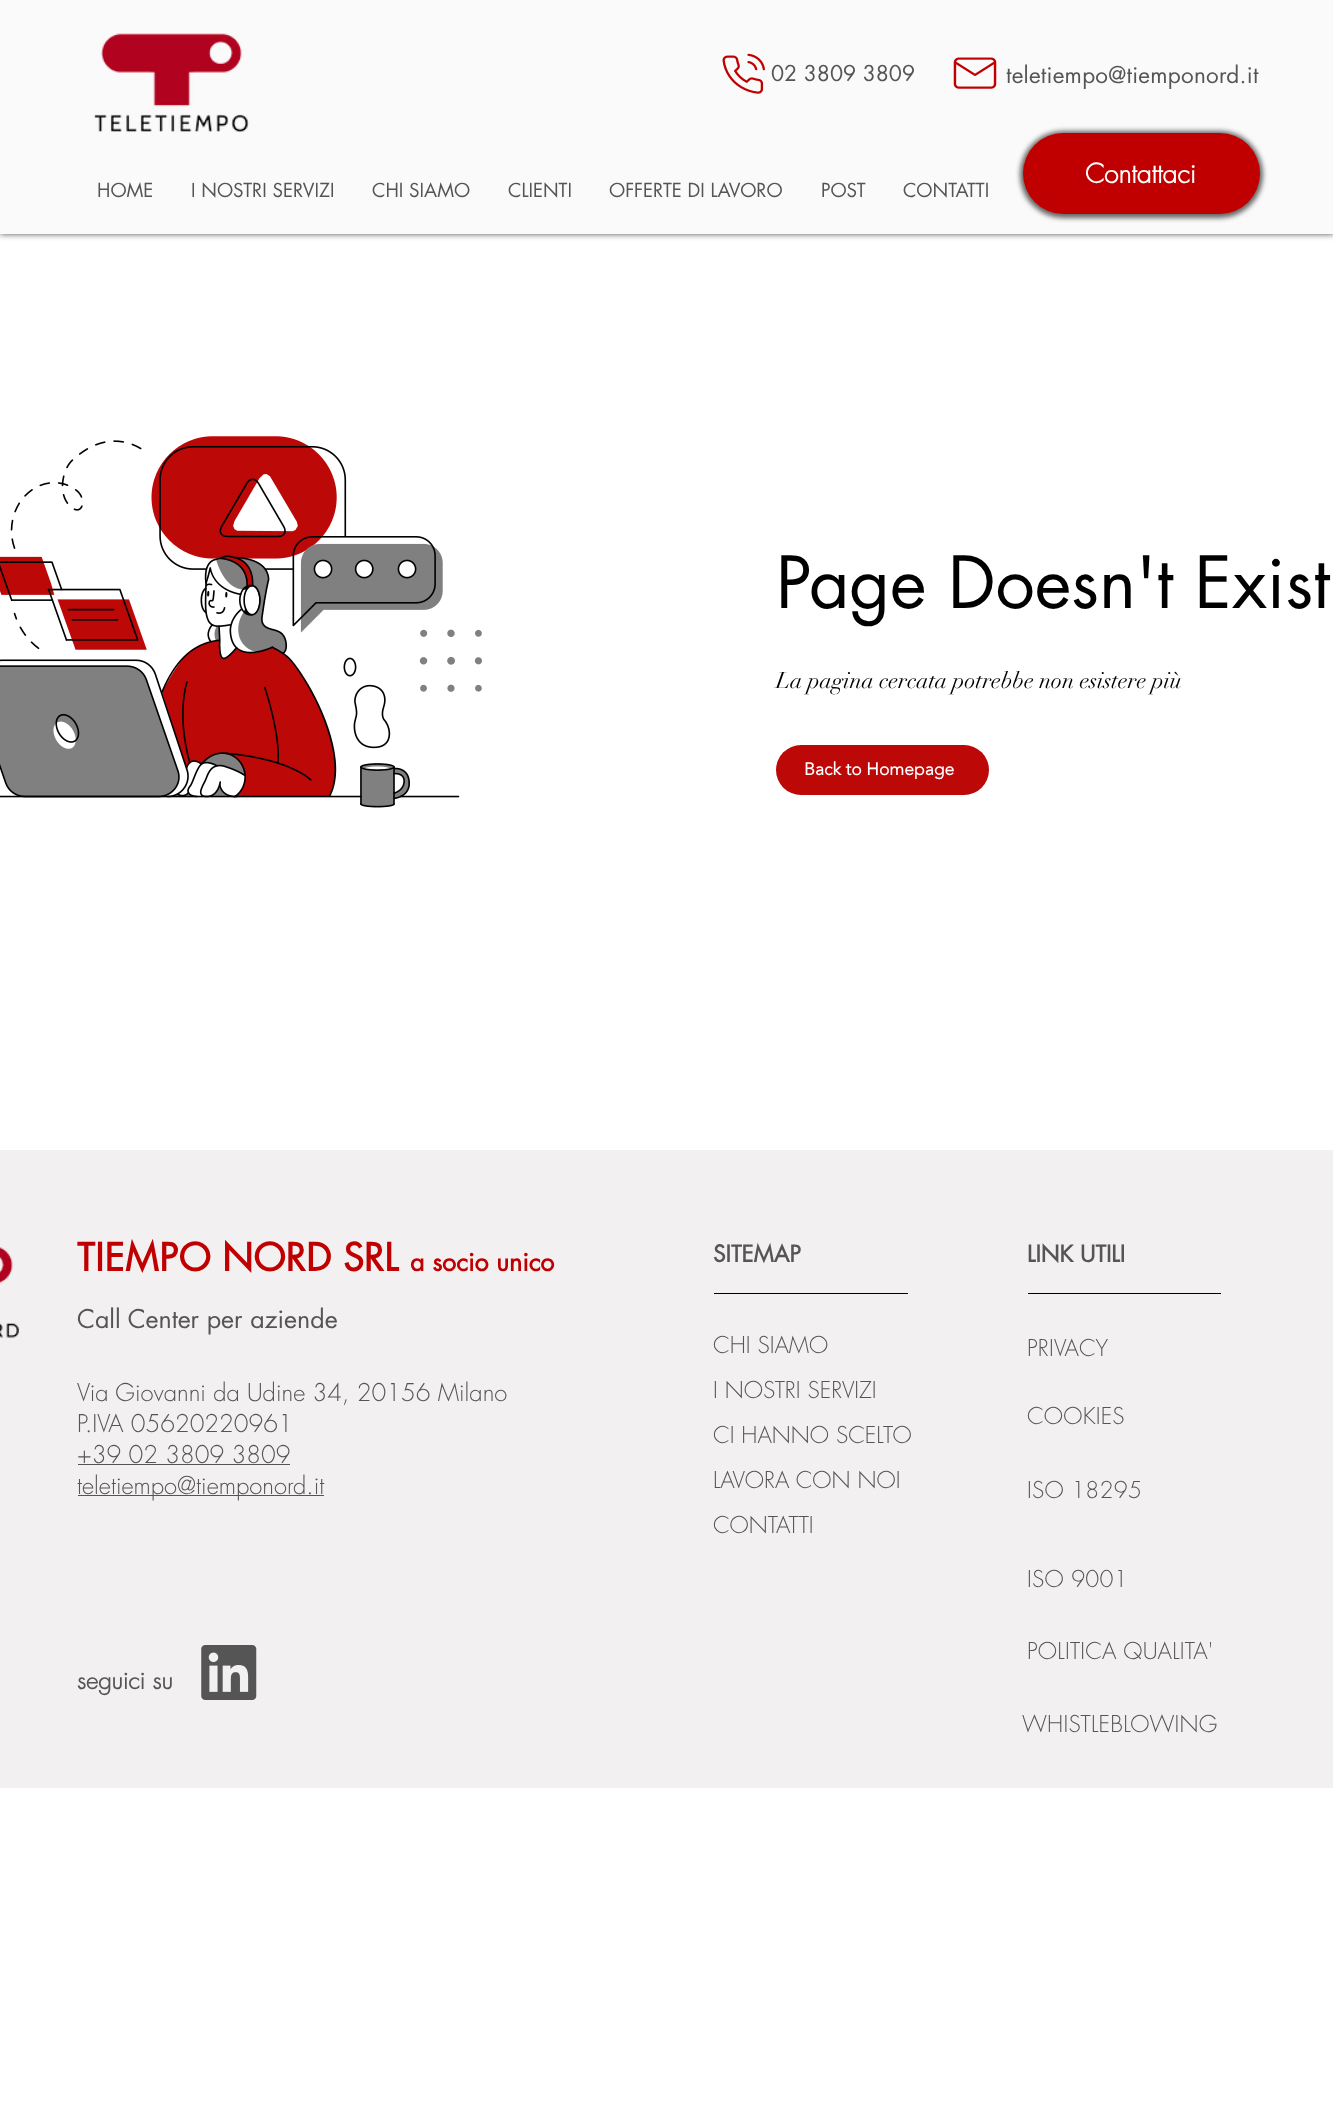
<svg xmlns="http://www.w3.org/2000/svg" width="1333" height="2104">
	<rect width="100%" height="100%" fill="#FFFFFF" />
	<rect x="0" y="0" width="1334" height="234" fill="#000000" fill-opacity="0.7" filter="blur(3px)" />
	<rect x="0" y="0" width="1333" height="234" fill="#FAFAFA" />
	<image x="93" y="33" width="156" height="100" href="assets/img1.png" />
	<image x="722" y="53" width="43" height="41" href="assets/img2.png" />
	<text x="771" y="81" font-family="futura" font-size="21.25" fill="#555555">02 3809 3809</text>
	<image x="953" y="57" width="44" height="32" href="assets/img3.png" />
	<text x="1006" y="83" font-family="futura" font-size="22.5" letter-spacing="0.25" fill="#555555">teletiempo@tiemponord.it</text>
	<rect x="1020" y="131" width="243" height="87" rx="43.5" fill="#000000" fill-opacity="0.6" filter="blur(2.5px)" />
	<rect x="1023" y="133" width="237" height="81" rx="40.5" fill="#C00000" />
	<text x="1085" y="183" font-family="'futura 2'" font-size="26.25" font-weight="700" fill="#FFFFFF">Contattaci</text>
	<g font-family="futura" font-size="18.75" fill="#555555">
		<text x="97" y="197">HOME</text>
		<text x="191" y="197">I NOSTRI SERVIZI</text>
		<text x="372" y="197">CHI SIAMO</text>
		<text x="508" y="197">CLIENTI</text>
		<text x="609" y="197">OFFERTE DI LAVORO</text>
		<text x="821" y="197">POST</text>
		<text x="903" y="197">CONTATTI</text>
	</g>
	<image x="0" y="436" width="482" height="372" href="assets/img4.png" />
	<text x="776" y="608" font-family="futura" font-size="70" fill="#000000">Page Doesn't Exist</text>
	<text x="776" y="688" font-family="didot" font-size="22.5" fill="#000000">La pagina cercata potrebbe non esistere più</text>
	<rect x="776" y="745" width="213" height="50" rx="25" fill="#BD0808" />
	<text x="804" y="775" font-family="'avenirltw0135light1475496'" font-size="17.5" font-weight="700" fill="#FFFFFF">Back to Homepage</text>
	<rect x="0" y="1150" width="1333" height="638" fill="#F2F0F0" />
	<image x="0" y="1247" width="19" height="91" href="assets/img5.png" />
	<text x="77" y="1271" font-family="futura" font-size="37.5" font-weight="700" letter-spacing="0.5" fill="#C00000">TIEMPO</text>
	<text x="222" y="1271" font-family="futura" font-size="37.5" font-weight="700" fill="#C00000">NORD SRL</text>
	<text x="410" y="1271" font-family="futura" font-size="25" font-weight="700" fill="#C00000">a socio unico</text>
	<g font-family="futura" font-size="22.5" font-weight="700" fill="#555555">
		<text x="713" y="1262">SITEMAP</text>
		<text x="1027" y="1262">LINK UTILI</text>
	</g>
	<rect x="714" y="1293" width="194" height="1" fill="#000000" />
	<rect x="1028" y="1293" width="193" height="1" fill="#000000" />
	<text x="77" y="1328" font-family="futura" font-size="25" fill="#555555">Call Center per aziende</text>
	<g font-family="futura" font-size="22.5" font-weight="300" fill="#555555">
		<text x="713" y="1353">CHI SIAMO</text>
		<text x="713" y="1398">I NOSTRI SERVIZI</text>
		<text x="713" y="1443">CI HANNO SCELTO</text>
		<text x="713" y="1488">LAVORA CON NOI</text>
		<text x="713" y="1533">CONTATTI</text>
	</g>
	<text x="1027" y="1356" font-family="futura" font-size="22.5" font-weight="300" letter-spacing="0.25" fill="#555555">PRIVACY</text>
	<g font-family="futura" font-size="23.75" font-weight="300" fill="#555555">
		<text x="77" y="1401">Via Giovanni da Udine 34, 20156 Milano</text>
		<text x="77" y="1432">P.IVA 05620220961</text>
		<text x="77" y="1463">+39 02 3809 3809</text>
	</g>
	<rect x="78" y="1464" width="212" height="1" fill="#555555" />
	<rect x="78" y="1495" width="246" height="1" fill="#555555" />
	<text x="77" y="1494" font-family="futura" font-size="23.75" font-weight="300" fill="#555555">teletiempo@tiemponord.it</text>
	<g font-family="futura" font-size="22.5" font-weight="300" letter-spacing="0.25" fill="#555555">
		<text x="1027" y="1424">COOKIES</text>
		<text x="1027" y="1498">ISO 18295</text>
		<text x="1027" y="1587">ISO 9001</text>
	</g>
	<text x="77" y="1689" font-family="'futura 2'" font-size="23.75" font-weight="700" fill="#555555">seguici su</text>
	<image x="201" y="1645" width="56" height="55" href="assets/img6.png" />
	<g font-family="futura" font-size="22.5" font-weight="300" letter-spacing="0.25" fill="#555555">
		<text x="1027" y="1659">POLITICA QUALITA'</text>
		<text x="1022" y="1732">WHISTLEBLOWING</text>
	</g>
</svg>
